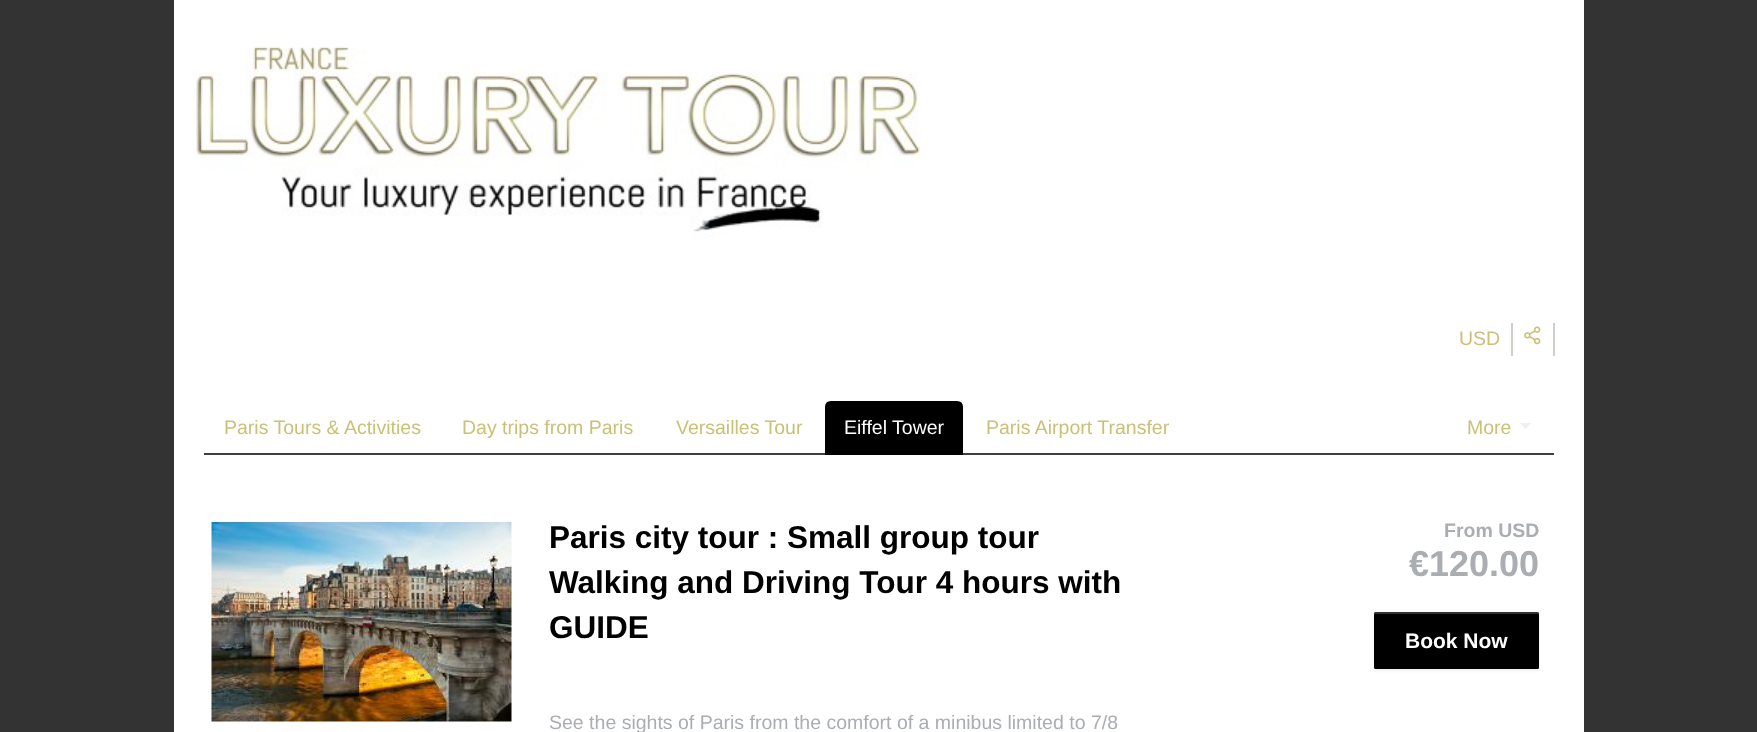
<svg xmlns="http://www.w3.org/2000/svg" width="1757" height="732">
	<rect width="100%" height="100%" fill="#333333" />
	<rect x="174" y="0" width="1410" height="732" fill="#FFFFFF" />
	<image x="196" y="46" width="724" height="194" href="assets/img1.png" />
	<rect x="1511" y="323" width="2" height="33" fill="#CCD1CA" />
	<text x="1459" y="345" font-family="Liberation Sans" font-size="19.5" fill="#CAC176">USD</text>
	<rect x="1553" y="323" width="2" height="33" fill="#CCD1CA" />
	<image x="1524" y="326" width="17" height="19" href="assets/img2.png" />
	<rect x="204" y="453" width="1350" height="2" fill="#404040" />
	<g font-family="Liberation Sans" font-size="19.5" fill="#CAC176">
		<text x="224" y="434">Paris Tours &amp; Activities</text>
		<text x="462" y="434">Day trips from Paris</text>
		<text x="676" y="434">Versailles Tour</text>
	</g>
	<path d="M831 402H957C960 402 962 404 962 407V454H826V407C826 404 828 402 831 402Z" fill="#000000" stroke="#000000" stroke-width="2" />
	<text x="844" y="434" font-family="Liberation Sans" font-size="19.5" fill="#FFFFFF">Eiffel Tower</text>
	<g font-family="Liberation Sans" font-size="19.5" fill="#CAC176">
		<text x="986" y="434">Paris Airport Transfer</text>
		<text x="1467" y="434">More</text>
	</g>
	<path d="M1519.5 423H1531.5L1525.5 429Z" fill="#F0F1EF" />
	<image x="211" y="522" width="301" height="200" href="assets/img3.png" />
	<g font-family="Liberation Sans" font-size="31.5" font-weight="700" fill="#000000">
		<text x="549" y="548">Paris city tour : Small group tour</text>
		<text x="549" y="593">Walking and Driving Tour 4 hours with</text>
		<text x="549" y="638">GUIDE</text>
	</g>
	<text x="549" y="729" font-family="Liberation Sans" font-size="19.5" fill="#AAADB1">See the sights of Paris from the comfort of a minibus limited to 7/8</text>
	<text x="1444" y="537" font-family="Liberation Sans" font-size="19.5" font-weight="700" fill="#AAADB1">From USD</text>
	<text x="1409" y="576" font-family="Liberation Sans" font-size="36" font-weight="700" fill="#AAADB1">€120.00</text>
	<rect x="1374" y="614" width="165" height="57" rx="1.5" fill="#000000" fill-opacity="0.05" filter="blur(1.5px)" />
	<rect x="1374" y="612" width="165" height="57" rx="1.5" fill="#000000" />
	<path d="M1376 614H1538L1539 615V614C1539 613 1538 612 1538 612H1376C1375 612 1374 613 1374 614V615C1374 614 1375 614 1376 614Z" fill="#FFFFFF" fill-opacity="0.2" />
	<text x="1405" y="648" font-family="Liberation Sans" font-size="21" font-weight="700" fill="#FFFFFF">Book Now</text>
</svg>
